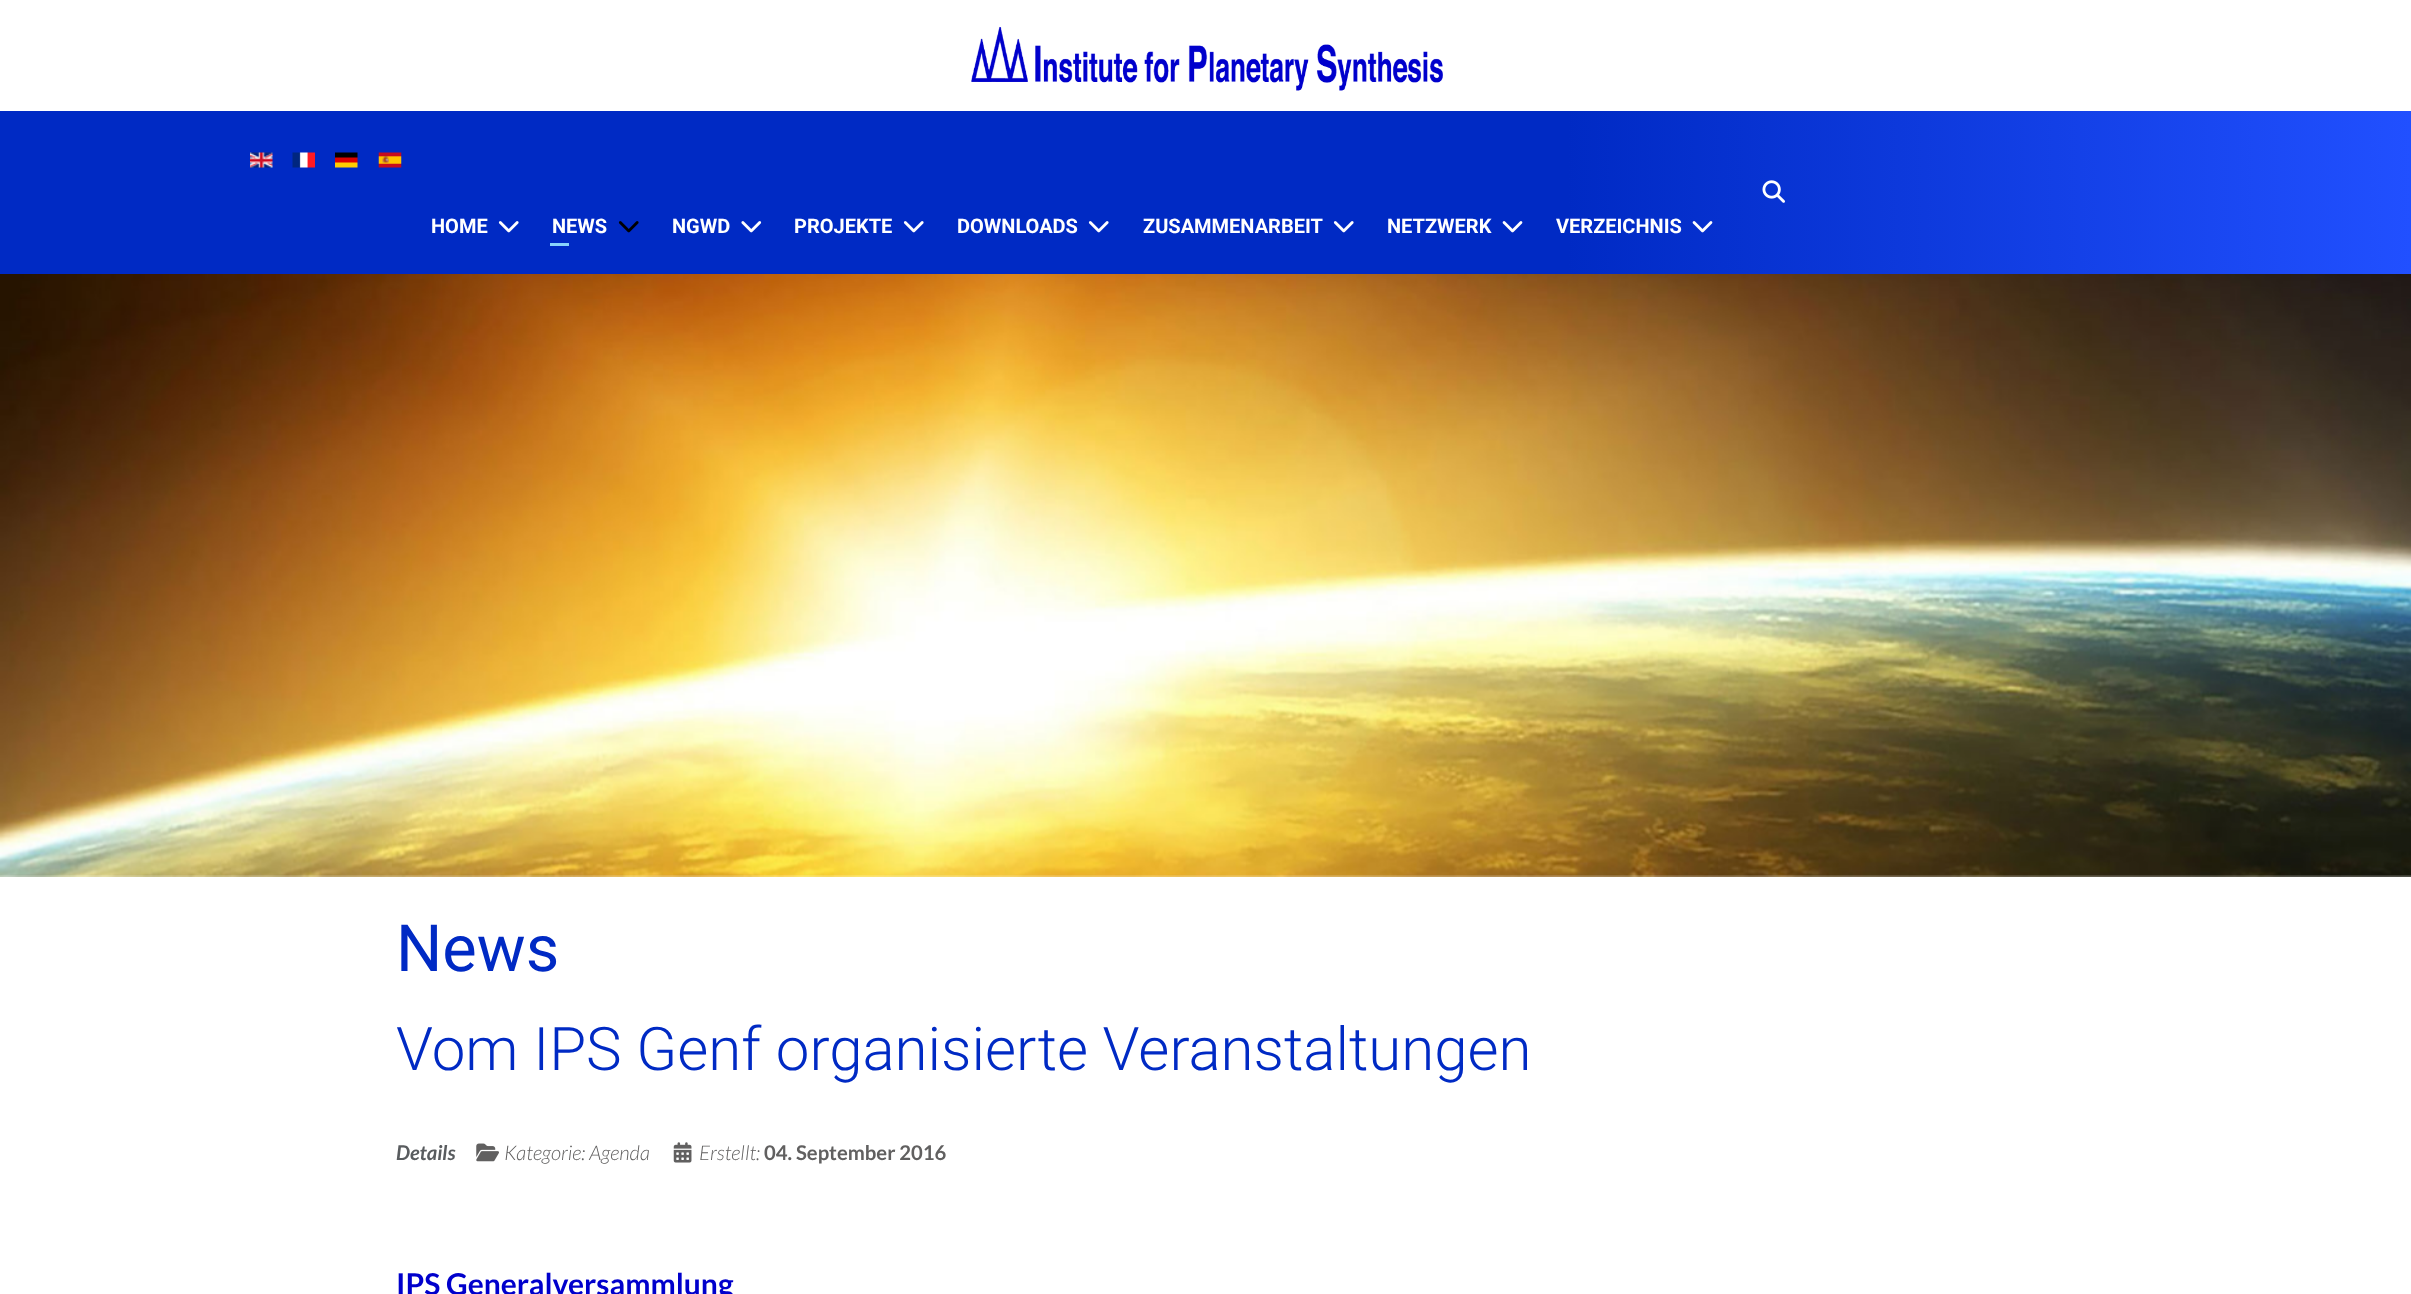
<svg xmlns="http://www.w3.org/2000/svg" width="2411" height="1294">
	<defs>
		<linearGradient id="g1" gradientUnits="userSpaceOnUse" x1="0" y1="193" x2="2411" y2="192"><stop offset="0" stop-color="#002AC4" /><stop offset="0.65" stop-color="#002AC4" /><stop offset="1" stop-color="#2150FF" /></linearGradient>
	</defs>
	<rect width="100%" height="100%" fill="#FFFFFF" />
	<image x="971" y="26" width="472" height="65" href="assets/img1.png" />
	<rect x="0" y="111" width="2411" height="163" fill="url(#g1)" />
	<image x="250" y="152" width="23" height="16" href="assets/img2.png" />
	<image x="292" y="152" width="23" height="16" href="assets/img3.png" />
	<image x="335" y="152" width="23" height="16" href="assets/img4.png" />
	<image x="378" y="152" width="24" height="16" href="assets/img5.png" />
	<image x="1762" y="180" width="23" height="23" href="assets/img6.png" />
	<text x="431" y="233" font-family="Roboto" font-size="20" font-weight="700" fill="#FFFFFF">HOME</text>
	<image x="498" y="221" width="21" height="12" href="assets/img7.png" />
	<text x="552" y="233" font-family="Roboto" font-size="20" font-weight="700" fill="#FFFFFF">NEWS</text>
	<rect x="550" y="243" width="19" height="3" fill="#88D3FC" />
	<image x="618" y="221" width="21" height="12" href="assets/img8.png" />
	<text x="672" y="233" font-family="Roboto" font-size="20" font-weight="700" fill="#FFFFFF">NGWD</text>
	<image x="741" y="221" width="21" height="12" href="assets/img9.png" />
	<text x="794" y="233" font-family="Roboto" font-size="20" font-weight="700" fill="#FFFFFF">PROJEKTE</text>
	<image x="903" y="221" width="21" height="12" href="assets/img7.png" />
	<text x="957" y="233" font-family="Roboto" font-size="20" font-weight="700" fill="#FFFFFF">DOWNLOADS</text>
	<image x="1088" y="221" width="21" height="12" href="assets/img7.png" />
	<text x="1143" y="233" font-family="Roboto" font-size="20" font-weight="700" fill="#FFFFFF">ZUSAMMENARBEIT</text>
	<image x="1333" y="221" width="21" height="12" href="assets/img7.png" />
	<text x="1387" y="233" font-family="Roboto" font-size="20" font-weight="700" fill="#FFFFFF">NETZWERK</text>
	<image x="1502" y="221" width="21" height="12" href="assets/img10.png" />
	<text x="1556" y="233" font-family="Roboto" font-size="20" font-weight="700" fill="#FFFFFF">VERZEICHNIS</text>
	<image x="1692" y="221" width="21" height="12" href="assets/img11.png" />
	<image x="0" y="274" width="2411" height="603" href="assets/img12.png" />
	<text x="396" y="971" font-family="Roboto" font-size="65" fill="#002AC4">News</text>
	<text x="396" y="1070" font-family="Roboto" font-size="60" font-weight="300" fill="#002AC4">Vom IPS Genf organisierte Veranstaltungen</text>
	<text x="396" y="1160" font-family="Lato" font-size="20.25" font-weight="700" font-style="italic" fill="#595C5F">Details</text>
	<image x="476" y="1143" width="23" height="19" href="assets/img13.png" />
	<text x="504" y="1160" font-family="Lato" font-size="20.25" font-weight="300" font-style="italic" fill="#616060">Kategorie: Agenda</text>
	<image x="673" y="1142" width="19" height="21" href="assets/img14.png" />
	<text x="699" y="1160" font-family="Lato" font-size="20.25" font-weight="300" font-style="italic" fill="#616060">Erstellt:</text>
	<text x="764" y="1160" font-family="Lato" font-size="20.25" font-weight="700" fill="#616060">04. September 2016</text>
	<text x="396" y="1295" font-family="Lato" font-size="30" font-weight="700" fill="#0000CC">IPS Generalversammlung</text>
</svg>
